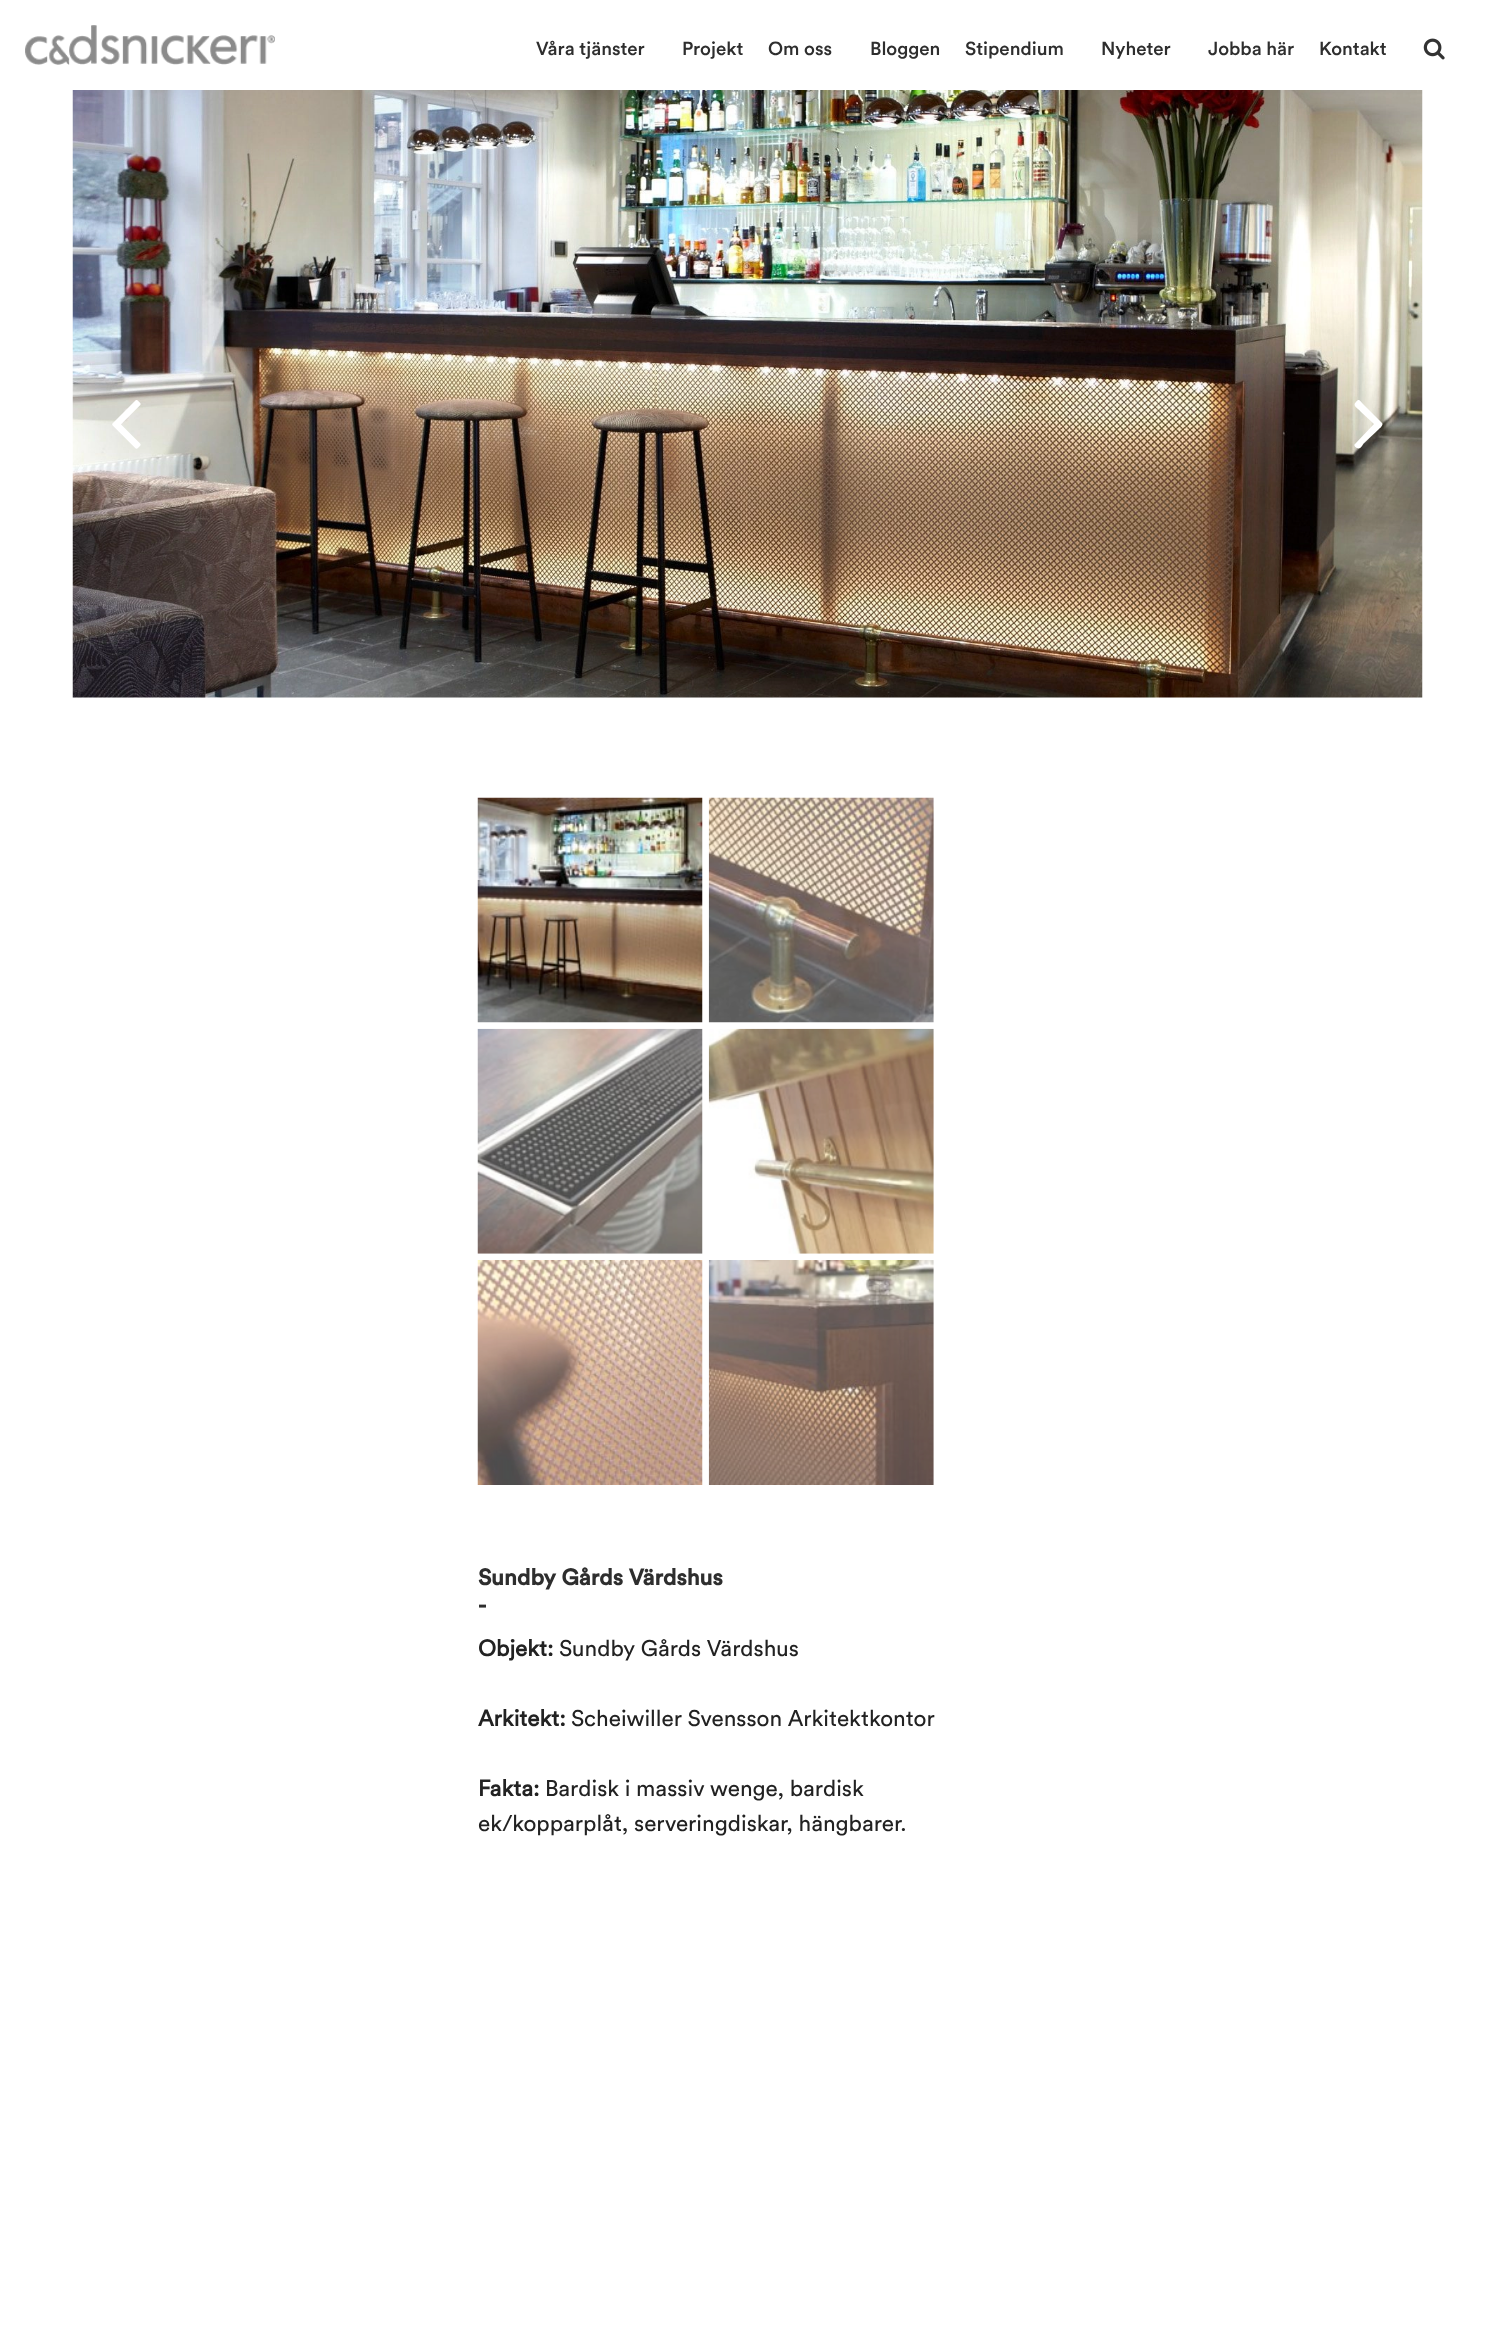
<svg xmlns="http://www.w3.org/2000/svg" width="1494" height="2325">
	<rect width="100%" height="100%" fill="#FFFFFF" />
	<image x="25" y="25" width="250" height="40" href="assets/img1.png" />
	<g font-family="Circular" font-size="18.75" font-weight="500" fill="#2E2E2E">
		<text x="536" y="55">Våra tjänster</text>
		<text x="682" y="55">Projekt</text>
		<text x="768" y="55">Om oss</text>
		<text x="870" y="55">Bloggen</text>
		<text x="965" y="55">Stipendium</text>
		<text x="1101" y="55">Nyheter</text>
		<text x="1208" y="55">Jobba här</text>
		<text x="1319" y="55">Kontakt</text>
	</g>
	<image x="1423" y="38" width="22" height="22" href="assets/img2.png" />
	<image x="72" y="90" width="1351" height="608" href="assets/img3.png" />
	<image x="112" y="400" width="29" height="49" href="assets/img4.png" />
	<path d="M1382 423C1384 425 1379 429 1379 429L1363 444C1363 445 1360 450 1357 448C1356 448 1353 445 1355 444L1374 424L1361 412C1357 407 1352 406 1356 402C1359 398 1360 401 1363 404Z" fill="#FFFFFF" />
	<image x="477" y="797" width="226" height="226" href="assets/img5.png" />
	<image x="708" y="797" width="226" height="226" href="assets/img6.png" />
	<image x="477" y="1028" width="226" height="226" href="assets/img7.png" />
	<image x="708" y="1028" width="226" height="226" href="assets/img8.png" />
	<image x="477" y="1260" width="226" height="225" href="assets/img9.png" />
	<image x="708" y="1260" width="226" height="225" href="assets/img10.png" />
	<g font-family="Circular" font-size="22.5" font-weight="700" fill="#2E2E2E">
		<text x="478" y="1585">Sundby Gårds Värdshus</text>
		<text x="478" y="1613">-</text>
	</g>
	<text x="478" y="1656" font-family="'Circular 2'" font-size="22.5" font-weight="700" fill="#222222">Objekt:</text>
	<text x="559" y="1656" font-family="Circular" font-size="22.5" fill="#222222">Sundby Gårds Värdshus</text>
	<text x="478" y="1726" font-family="'Circular 2'" font-size="22.5" font-weight="700" fill="#222222">Arkitekt:</text>
	<text x="571" y="1726" font-family="Circular" font-size="22.5" fill="#222222">Scheiwiller Svensson Arkitektkontor</text>
	<text x="478" y="1796" font-family="'Circular 2'" font-size="22.5" font-weight="700" fill="#222222">Fakta:</text>
	<g font-family="Circular" font-size="22.5" fill="#222222">
		<text x="545" y="1796">Bardisk i massiv wenge, bardisk</text>
		<text x="478" y="1831">ek/kopparplåt, serveringdiskar, hängbarer.</text>
	</g>
</svg>
